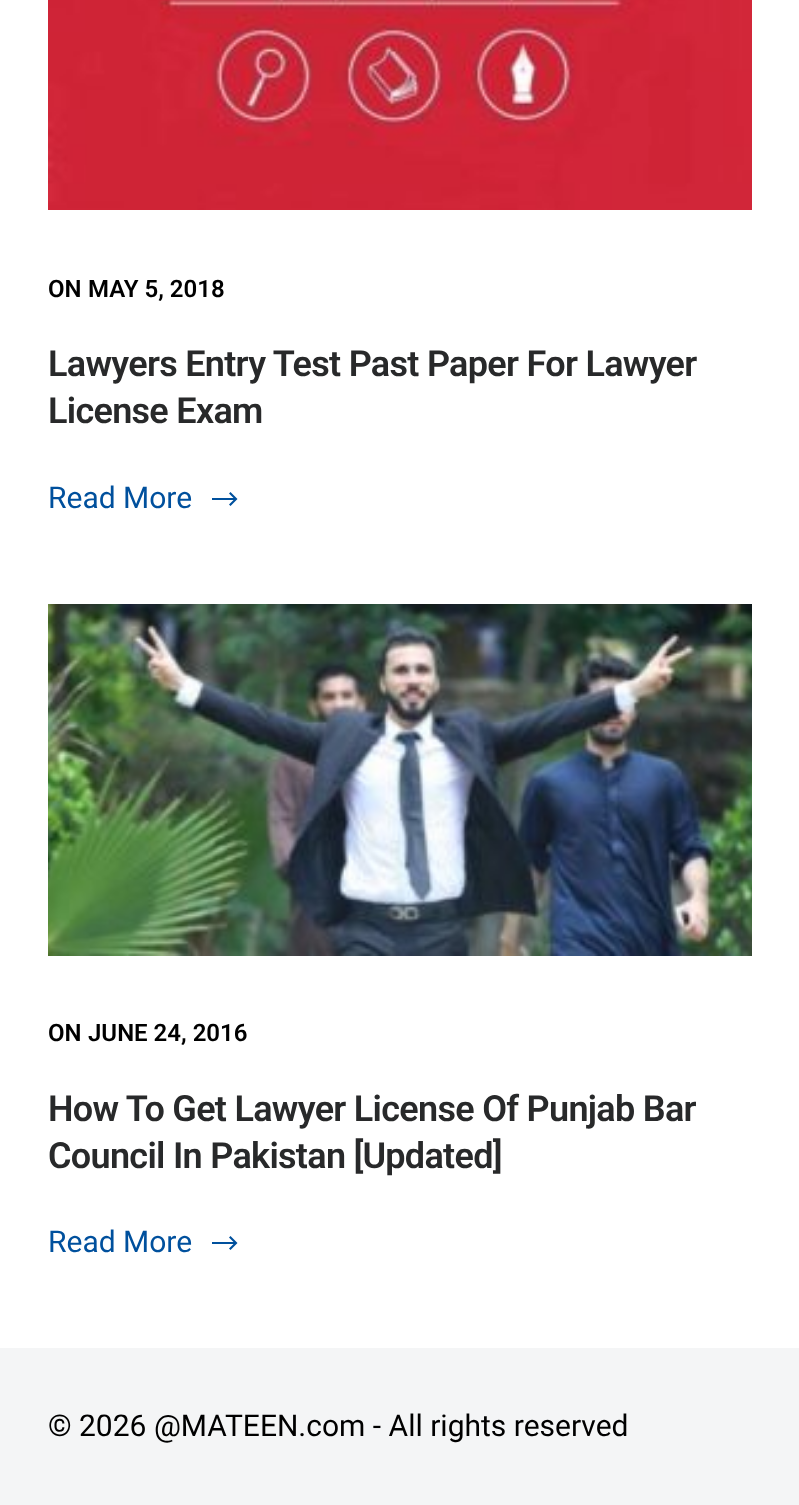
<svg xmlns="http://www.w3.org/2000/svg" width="799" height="1505">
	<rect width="100%" height="100%" fill="#FFFFFF" />
	<image x="48" y="0" width="704" height="210" href="assets/img1.png" />
	<g font-family="Roboto" font-size="24" font-weight="600" fill="#000000">
		<text x="48" y="297">ON</text>
		<text x="88" y="297">MAY 5, 2018</text>
	</g>
	<g font-family="Roboto" font-size="36" font-weight="600" letter-spacing="-0.7" fill="#28292A">
		<text x="48" y="376">Lawyers Entry Test Past Paper For Lawyer</text>
		<text x="48" y="423">License Exam</text>
	</g>
	<text x="48" y="508" font-family="Roboto" font-size="30" fill="#00509D">Read More</text>
	<path d="M230.5 492L229 493.5L233.5 498H212V500H233.5L229 504.5L230.5 506L237.5 499Z" fill="#00509D" />
	<image x="48" y="604" width="704" height="352" href="assets/img2.png" />
	<g font-family="Roboto" font-size="24" font-weight="600" fill="#000000">
		<text x="48" y="1041">ON</text>
		<text x="88" y="1041">JUNE 24, 2016</text>
	</g>
	<g font-family="Roboto" font-size="36" font-weight="600" letter-spacing="-0.7" fill="#28292A">
		<text x="48" y="1121">How To Get Lawyer License Of Punjab Bar</text>
		<text x="48" y="1168">Council In Pakistan [Updated]</text>
	</g>
	<text x="48" y="1252" font-family="Roboto" font-size="30" fill="#00509D">Read More</text>
	<path d="M230.5 1236L229 1237.5L233.5 1242H212V1244H233.5L229 1248.5L230.5 1250L237.5 1243Z" fill="#00509D" />
	<rect x="0" y="1348" width="799" height="157" fill="#F4F5F6" />
	<text x="48" y="1436" font-family="Roboto" font-size="30" fill="#000000">© 2026 @MATEEN.com - All rights reserved</text>
</svg>
